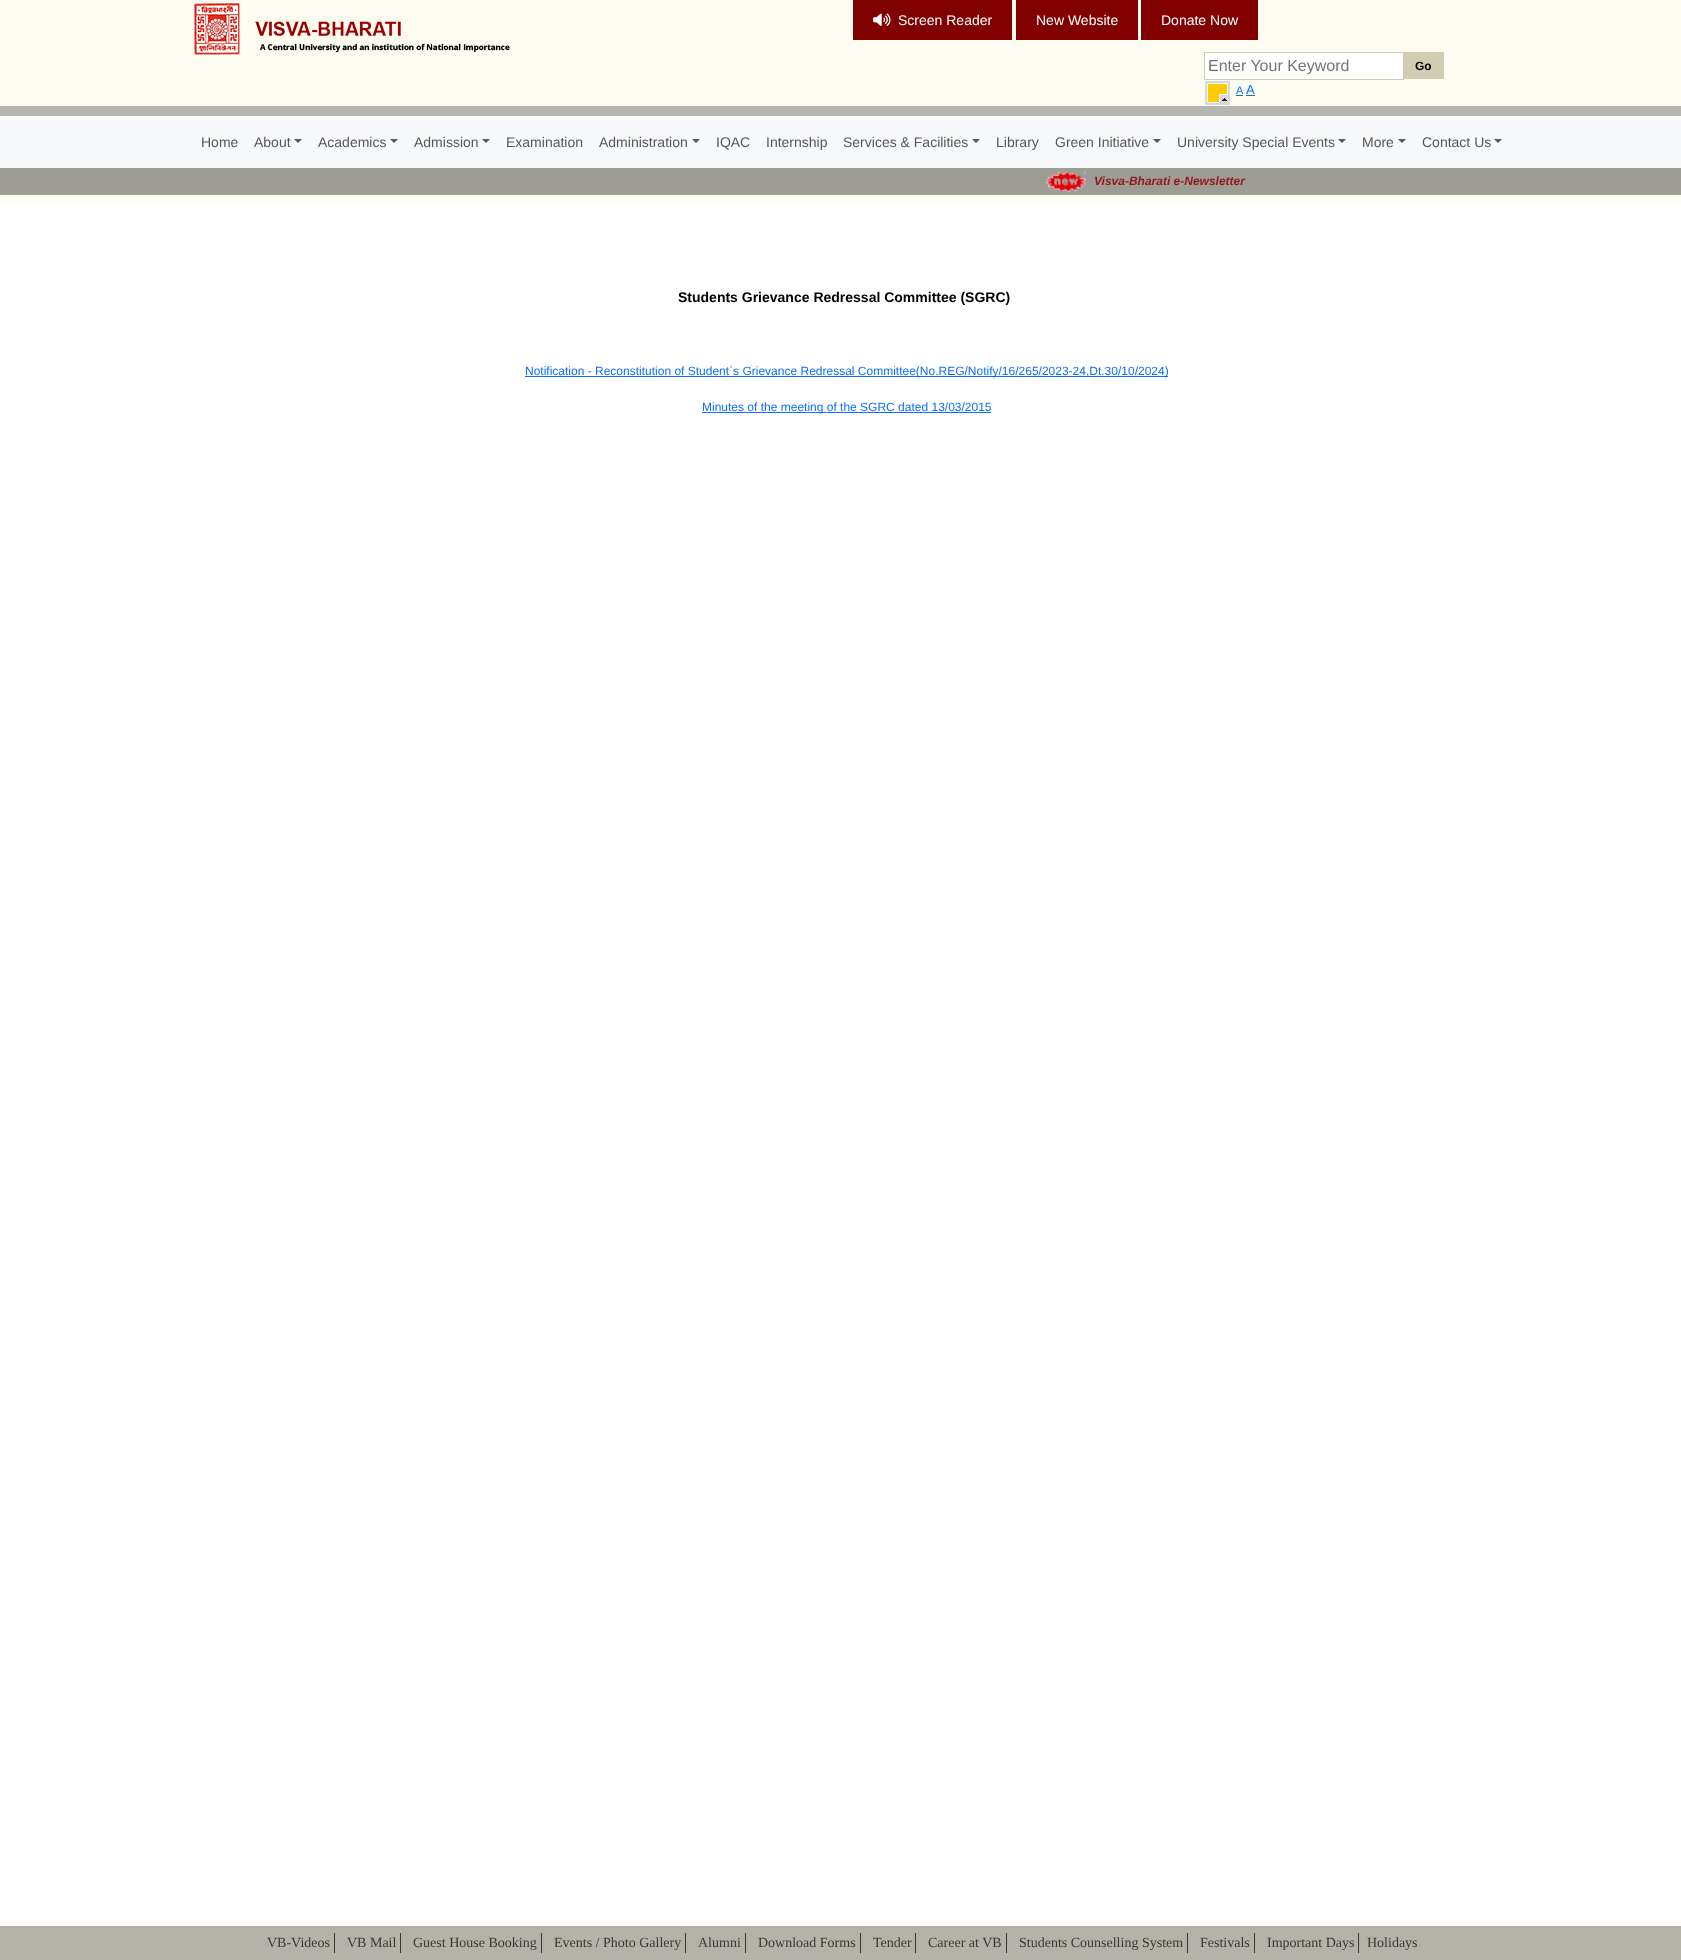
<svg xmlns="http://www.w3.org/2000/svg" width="1681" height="1960">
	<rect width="100%" height="100%" fill="#FFFFFF" />
	<rect x="0" y="0" width="1681" height="201" fill="#FDFCF1" />
	<image x="194" y="3" width="316" height="52" href="assets/img1.png" />
	<rect x="853" y="0" width="159" height="40" fill="#800000" />
	<image x="873" y="13" width="18" height="13" href="assets/img2.png" />
	<text x="898" y="25" font-family="Liberation Sans" font-size="14" fill="#FFFFFF">Screen Reader</text>
	<rect x="1016" y="0" width="122" height="40" fill="#800000" />
	<text x="1036" y="25" font-family="Liberation Sans" font-size="14" fill="#FFFFFF">New Website</text>
	<rect x="1141" y="0" width="117" height="40" fill="#800000" />
	<text x="1161" y="25" font-family="Liberation Sans" font-size="14" fill="#FFFFFF">Donate Now</text>
	<rect x="1204.5" y="52.5" width="199" height="27" fill="#FFFFFF" stroke="#CECDAF" />
	<text x="1208" y="71" font-family="Liberation Sans" font-size="16" fill="#757575">Enter Your Keyword</text>
	<rect x="1404" y="52" width="40" height="27" fill="#D0CDB3" />
	<text x="1415" y="70" font-family="Liberation Sans" font-size="12" font-weight="700" fill="#000000">Go</text>
	<rect x="1208" y="84" width="19" height="18" fill="#FFCC00" />
	<image x="1205" y="81" width="25" height="24" href="assets/img3.png" />
	<text x="1236" y="94" font-family="Liberation Sans" font-size="11" fill="#0D6EFD">A</text>
	<rect x="1236" y="95" width="7" height="1" fill="#0D6EFD" />
	<text x="1246" y="94" font-family="Liberation Sans" font-size="13" fill="#0D6EFD">A</text>
	<rect x="1246" y="95" width="9" height="1" fill="#0D6EFD" />
	<rect x="0" y="116" width="1681" height="52" fill="#F8F9FA" />
	<rect x="0" y="106" width="1681" height="10" fill="#B6B5B2" />
	<g font-family="Liberation Sans" font-size="14" fill="#575758">
		<text x="201" y="147">Home</text>
		<text x="254" y="147">About</text>
	</g>
	<path d="M294 139H302L298 143Z" fill="#575758" />
	<text x="318" y="147" font-family="Liberation Sans" font-size="14" fill="#575758">Academics</text>
	<path d="M390 139H398L394 143Z" fill="#575758" />
	<text x="414" y="147" font-family="Liberation Sans" font-size="14" fill="#575758">Admission</text>
	<path d="M482 139H490L486 143Z" fill="#575758" />
	<g font-family="Liberation Sans" font-size="14" fill="#575758">
		<text x="506" y="147">Examination</text>
		<text x="599" y="147">Administration</text>
	</g>
	<path d="M692 139H700L696 143Z" fill="#575758" />
	<g font-family="Liberation Sans" font-size="14" fill="#575758">
		<text x="716" y="147">IQAC</text>
		<text x="766" y="147">Internship</text>
		<text x="843" y="147">Services &amp; Facilities</text>
	</g>
	<path d="M972 139H980L976 143Z" fill="#575758" />
	<g font-family="Liberation Sans" font-size="14" fill="#575758">
		<text x="996" y="147">Library</text>
		<text x="1055" y="147">Green Initiative</text>
	</g>
	<path d="M1153 139H1161L1157 143Z" fill="#575758" />
	<text x="1177" y="147" font-family="Liberation Sans" font-size="14" fill="#575758">University Special Events</text>
	<path d="M1338 139H1346L1342 143Z" fill="#575758" />
	<text x="1362" y="147" font-family="Liberation Sans" font-size="14" fill="#575758">More</text>
	<path d="M1398 139H1406L1402 143Z" fill="#575758" />
	<text x="1422" y="147" font-family="Liberation Sans" font-size="14" fill="#575758">Contact Us</text>
	<path d="M1494 139H1502L1498 143Z" fill="#575758" />
	<rect x="0" y="168" width="1681" height="27" fill="#9D9C95" />
	<image x="1045" y="171" width="41" height="21" href="assets/img4.png" />
	<text x="1094" y="185" font-family="Liberation Sans" font-size="12" font-weight="700" font-style="italic" fill="#96181C">Visva-Bharati e-Newsletter</text>
	<text x="678" y="302" font-family="Liberation Sans" font-size="14" font-weight="700" fill="#000000">Students Grievance Redressal Committee (SGRC)</text>
	<rect x="525" y="376" width="643" height="1" fill="#0D6EFD" />
	<text x="525" y="375" font-family="Liberation Sans" font-size="12" fill="#0D6EFD">Notification - Reconstitution of Student`s Grievance Redressal Committee(No.REG/Notify/16/265/2023-24,Dt.30/10/2024)</text>
	<rect x="702" y="412" width="289" height="1" fill="#0D6EFD" />
	<text x="702" y="411" font-family="Liberation Sans" font-size="12" fill="#0D6EFD">Minutes of the meeting of the SGRC dated 13/03/2015</text>
	<rect x="0" y="1926" width="1681" height="34" fill="#B5B2A9" />
	<rect x="334" y="1933" width="1" height="20" fill="#3B3737" />
	<text x="267" y="1947" font-family="Liberation Serif" font-size="14" fill="#3B3737">VB-Videos</text>
	<rect x="400" y="1933" width="1" height="20" fill="#3B3737" />
	<text x="347" y="1947" font-family="Liberation Serif" font-size="14" fill="#3B3737">VB Mail</text>
	<rect x="541" y="1933" width="1" height="20" fill="#3B3737" />
	<text x="413" y="1947" font-family="Liberation Serif" font-size="14" fill="#3B3737">Guest House Booking</text>
	<rect x="685" y="1933" width="1" height="20" fill="#3B3737" />
	<text x="554" y="1947" font-family="Liberation Serif" font-size="14" fill="#3B3737">Events / Photo Gallery</text>
	<rect x="745" y="1933" width="1" height="20" fill="#3B3737" />
	<text x="698" y="1947" font-family="Liberation Serif" font-size="14" fill="#3B3737">Alumni</text>
	<rect x="860" y="1933" width="1" height="20" fill="#3B3737" />
	<text x="758" y="1947" font-family="Liberation Serif" font-size="14" fill="#3B3737">Download Forms</text>
	<rect x="915" y="1933" width="1" height="20" fill="#3B3737" />
	<text x="873" y="1947" font-family="Liberation Serif" font-size="14" fill="#3B3737">Tender</text>
	<rect x="1006" y="1933" width="1" height="20" fill="#3B3737" />
	<text x="928" y="1947" font-family="Liberation Serif" font-size="14" fill="#3B3737">Career at VB</text>
	<rect x="1187" y="1933" width="1" height="20" fill="#3B3737" />
	<text x="1019" y="1947" font-family="Liberation Serif" font-size="14" fill="#3B3737">Students Counselling System</text>
	<rect x="1254" y="1933" width="1" height="20" fill="#3B3737" />
	<text x="1200" y="1947" font-family="Liberation Serif" font-size="14" fill="#3B3737">Festivals</text>
	<rect x="1358" y="1933" width="1" height="20" fill="#3B3737" />
	<g font-family="Liberation Serif" font-size="14" fill="#3B3737">
		<text x="1267" y="1947">Important Days</text>
		<text x="1367" y="1947">Holidays</text>
	</g>
</svg>
